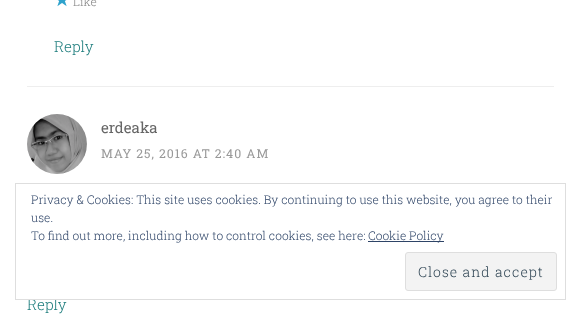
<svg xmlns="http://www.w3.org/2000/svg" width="581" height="315">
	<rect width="100%" height="100%" fill="#FFFFFF" />
	<image x="57" y="0" width="10" height="7" href="assets/img1.png" />
	<text x="73" y="6" font-family="Roboto Slab" font-size="12" font-weight="300" fill="#858585">Like</text>
	<text x="54" y="52" font-family="Roboto Slab" font-size="15" font-weight="300" fill="#1C7C7C">Reply</text>
	<rect x="27" y="86" width="527" height="1" fill="#EEEEEE" />
	<image x="27" y="114" width="60" height="60" href="assets/img2.png" />
	<text x="101" y="133" font-family="Roboto Slab" font-size="15" fill="#666666">erdeaka</text>
	<text x="101" y="158" font-family="Roboto Slab" font-size="12.25" letter-spacing="1" fill="#999999">MAY 25, 2016 AT 2:40 AM</text>
	<text x="27" y="310" font-family="Roboto Slab" font-size="15" font-weight="300" fill="#1C7C7C">Reply</text>
	<rect x="54" y="298" width="3" height="1" fill="#FFFFFF" />
	<rect x="15.5" y="183.5" width="550" height="116" fill="none" stroke="#DEDEDE" />
	<g font-family="Roboto Slab" font-size="12" font-weight="300" fill="#2E4467">
		<text x="31" y="204">Privacy &amp; Cookies: This site uses cookies. By continuing to use this website, you agree to their</text>
		<text x="31" y="222">use.</text>
		<text x="31" y="240">To find out more, including how to control cookies, see here:</text>
	</g>
	<rect x="368" y="241" width="76" height="1" fill="#2E4467" />
	<text x="368" y="240" font-family="Roboto Slab" font-size="12" font-weight="300" fill="#2E4467">Cookie Policy</text>
	<rect x="405.5" y="252.5" width="151" height="38" rx="2.5" fill="#F3F3F3" stroke="#DEDEDE" />
	<text x="418" y="277" font-family="Roboto Slab" font-size="14" font-weight="300" letter-spacing="1" fill="#2E4453">Close and accept</text>
</svg>
